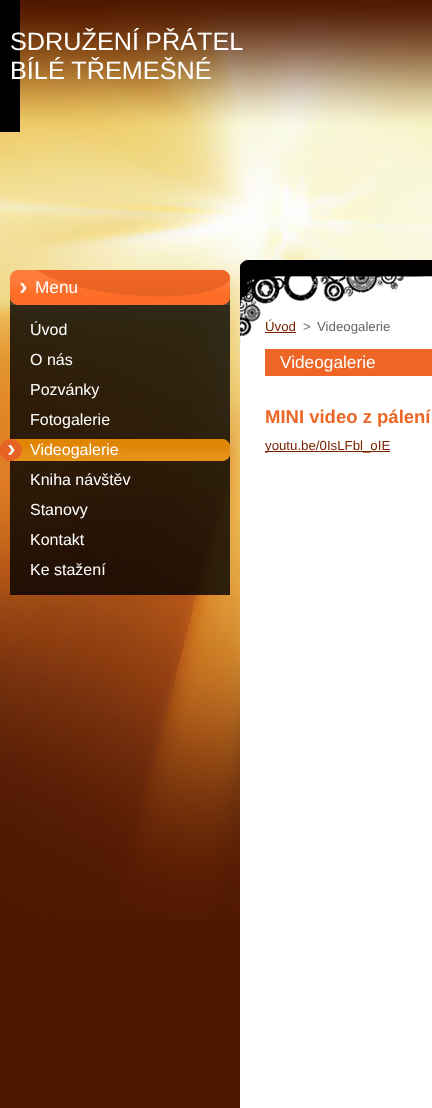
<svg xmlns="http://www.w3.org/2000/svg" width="432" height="1108">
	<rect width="100%" height="100%" fill="#4E1601" />
	<image x="0" y="0" width="432" height="920" href="assets/img1.png" />
	<rect x="0" y="0" width="20" height="132" fill="#000000" />
	<rect x="240" y="265" width="192" height="843" fill="#FFFFFF" />
	<g font-family="Liberation Sans" font-size="25.25" fill="#FFFFFF">
		<text x="10" y="50" word-spacing="-1">SDRUŽENÍ PŘÁTEL</text>
		<text x="10" y="79">BÍLÉ TŘEMEŠNÉ</text>
	</g>
	<image x="240" y="260" width="192" height="10" href="assets/img2.png" />
	<image x="10" y="270" width="220" height="35" href="assets/img3.png" />
	<text x="35" y="293" font-family="Liberation Sans" font-size="17.25" fill="#FFFFFF">Menu</text>
	<rect x="10" y="305" width="220" height="290" fill="#000000" fill-opacity="0.8" />
	<g font-family="Liberation Sans" font-size="16" fill="#FFFFFF">
		<text x="30" y="335">Úvod</text>
		<text x="30" y="365">O nás</text>
		<text x="30" y="395">Pozvánky</text>
		<text x="30" y="425">Fotogalerie</text>
	</g>
	<image x="0" y="439" width="230" height="22" href="assets/img4.png" />
	<g font-family="Liberation Sans" font-size="16" fill="#FFFFFF">
		<text x="30" y="455">Videogalerie</text>
		<text x="30" y="485">Kniha návštěv</text>
		<text x="30" y="515">Stanovy</text>
		<text x="30" y="545">Kontakt</text>
		<text x="30" y="575">Ke stažení</text>
	</g>
	<image x="240" y="270" width="192" height="76" href="assets/img5.png" />
	<text x="265" y="331" font-family="Liberation Sans" font-size="13.25" fill="#772101">Úvod</text>
	<rect x="265" y="332" width="31" height="1" fill="#772101" />
	<g font-family="Liberation Sans" font-size="13.25" fill="#666666">
		<text x="303" y="331">&gt;</text>
		<text x="317" y="331">Videogalerie</text>
	</g>
	<rect x="265" y="349" width="167" height="27" fill="#EE6625" />
	<text x="280" y="368" font-family="Liberation Sans" font-size="17.25" fill="#FFFFFF">Videogalerie</text>
	<text x="265" y="423" font-family="Liberation Sans" font-size="18.5" font-weight="700" fill="#EE6625">MINI video z pálení</text>
	<rect x="265" y="451" width="125" height="1" fill="#772101" />
	<text x="265" y="450" font-family="Liberation Sans" font-size="13.25" fill="#772101">youtu.be/0IsLFbl_oIE</text>
</svg>
